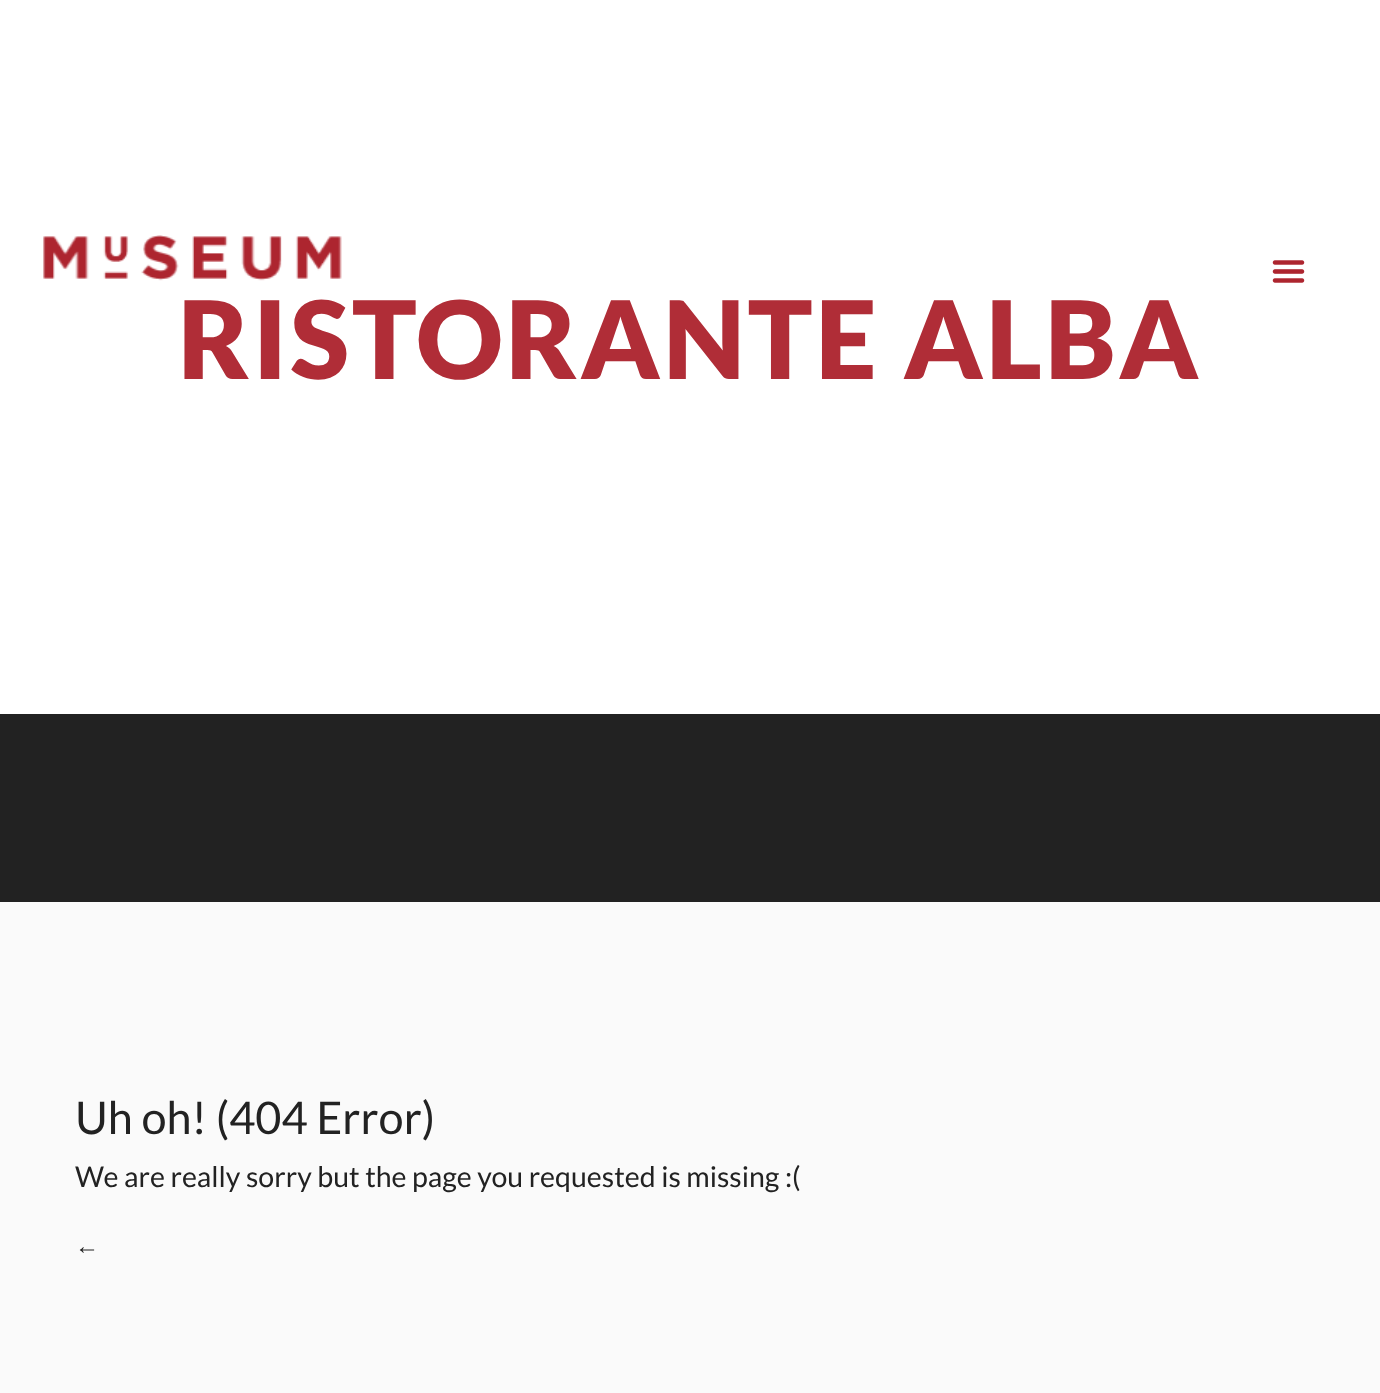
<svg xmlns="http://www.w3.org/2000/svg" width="1380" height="1393">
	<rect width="100%" height="100%" fill="#222222" />
	<rect x="0" y="0" width="1380" height="714" fill="#FFFFFF" />
	<image x="43" y="235" width="299" height="46" href="assets/img1.png" />
	<image x="1272" y="260" width="33" height="23" href="assets/img2.png" />
	<text x="178" y="379" font-family="Lato" font-size="108" font-weight="900" letter-spacing="3" fill="#B02D37">RISTORANTE ALBA</text>
	<rect x="0" y="902" width="1380" height="491" fill="#FAFAFA" />
	<text x="75" y="1134" font-family="Lato" font-size="45" fill="#222222">Uh oh! (404 Error)</text>
	<text x="75" y="1187" font-family="Lato" font-size="28.5" fill="#222222">We are really sorry but the page you requested is missing :(</text>
	<text x="75" y="1254" font-family="Liberation Sans" font-size="24" fill="#222222">←</text>
</svg>
